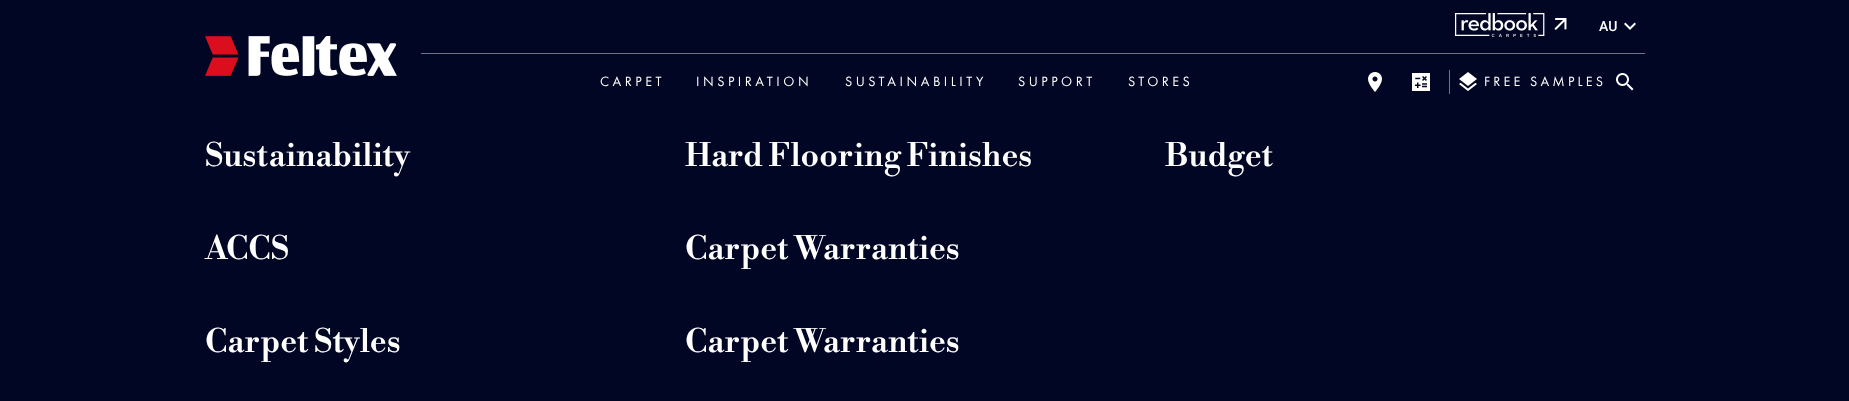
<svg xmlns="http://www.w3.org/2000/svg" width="1849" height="401">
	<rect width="100%" height="100%" fill="#000623" />
	<image x="1455" y="13" width="90" height="24" href="assets/img1.png" />
	<image x="1554" y="18" width="13" height="12" href="assets/img2.png" />
	<text x="1599" y="31" font-family="Roboto" font-size="14" font-weight="500" fill="#FFFFFF">AU</text>
	<image x="1624" y="22" width="12" height="8" href="assets/img3.png" />
	<image x="205" y="36" width="192" height="40" href="assets/img4.png" />
	<rect x="421" y="53" width="1224" height="1" fill="#717583" />
	<g font-family="Futura PT" font-size="14" letter-spacing="3.5" fill="#FFFFFF">
		<text x="600" y="86">CARPET</text>
		<text x="696" y="86">INSPIRATION</text>
		<text x="845" y="86">SUSTAINABILITY</text>
		<text x="1018" y="86">SUPPORT</text>
		<text x="1128" y="86">STORES</text>
	</g>
	<image x="1368" y="72" width="14" height="20" href="assets/img5.png" />
	<rect x="1449" y="70" width="1" height="24" fill="#717583" />
	<image x="1412" y="73" width="18" height="18" href="assets/img6.png" />
	<image x="1459" y="72" width="18" height="19" href="assets/img7.png" />
	<text x="1484" y="86" font-family="Futura PT" font-size="14" letter-spacing="3.25" fill="#FFFFFF">FREE SAMPLES</text>
	<image x="1616" y="73" width="18" height="18" href="assets/img8.png" />
	<g font-family="Libre Bodoni" font-size="32" font-weight="600" fill="#FFFFFF">
		<text x="205" y="166">Sustainability</text>
		<text x="685" y="166">Hard Flooring Finishes</text>
		<text x="1165" y="166">Budget</text>
		<text x="205" y="259">ACCS</text>
		<text x="685" y="259">Carpet Warranties</text>
		<text x="205" y="352">Carpet Styles</text>
		<text x="685" y="352">Carpet Warranties</text>
	</g>
</svg>
